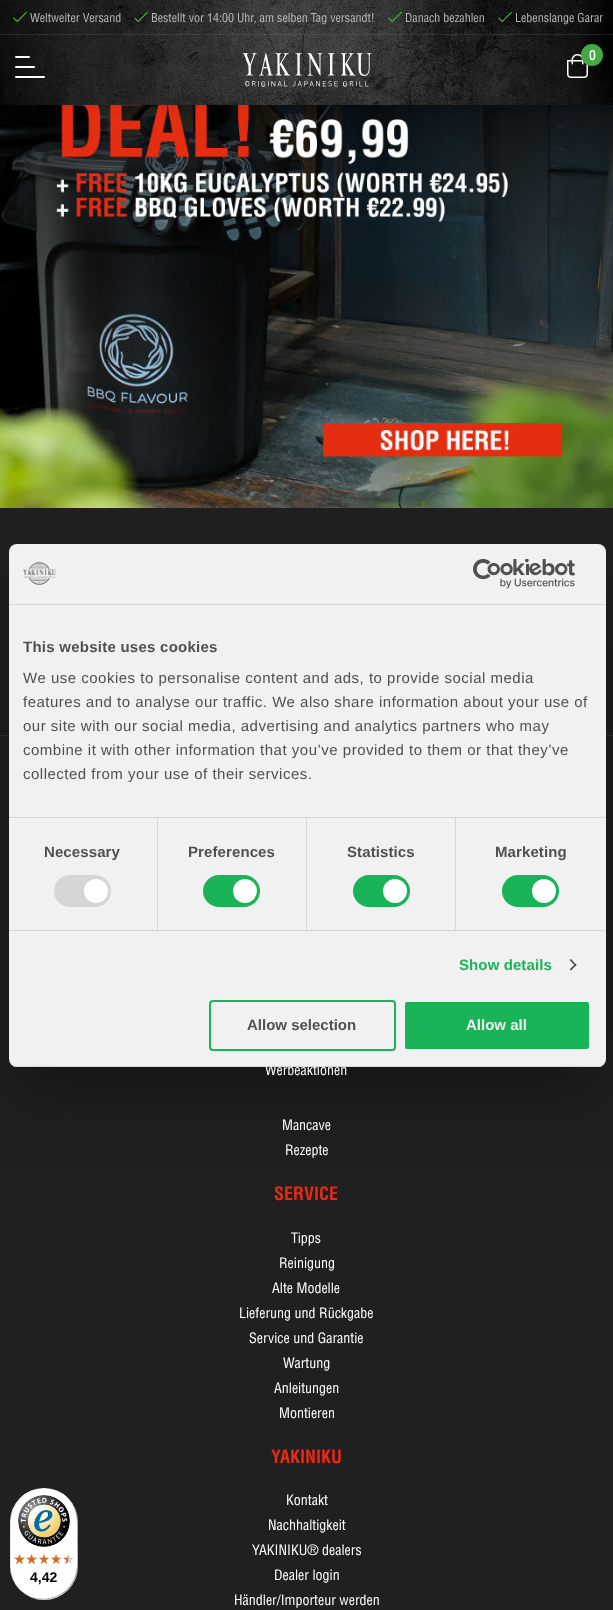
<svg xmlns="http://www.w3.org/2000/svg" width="613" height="1610">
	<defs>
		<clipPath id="clip1"><rect x="10" y="0" width="593" height="35" /></clipPath>
		<clipPath id="clip2"><rect x="9" y="544" width="597" height="523" rx="8" /></clipPath>
	</defs>
	<rect width="100%" height="100%" fill="#202020" />
	<image x="0" y="104" width="613" height="404" href="assets/img8.png" />
	<rect x="0" y="0" width="613" height="105" fill="#000000" fill-opacity="0.1" filter="blur(5px)" />
	<image x="0" y="0" width="613" height="105" href="assets/img1.png" />
	<rect x="0" y="34" width="613" height="1" fill="#858585" fill-opacity="0.2" />
	<image x="13" y="11" width="14" height="12" href="assets/img2.png" />
	<text x="30" y="22" font-family="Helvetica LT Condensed" font-size="12" font-weight="500" fill="#B7B7B7">Weltweiter Versand</text>
	<image x="134" y="11" width="14" height="12" href="assets/img3.png" />
	<text x="151" y="22" font-family="Helvetica LT Condensed" font-size="12" font-weight="500" fill="#B7B7B7">Bestellt vor 14:00 Uhr, am selben Tag versandt!</text>
	<image x="388" y="11" width="14" height="12" href="assets/img4.png" />
	<text x="405" y="22" font-family="Helvetica LT Condensed" font-size="12" font-weight="500" fill="#B7B7B7">Danach bezahlen</text>
	<image x="498" y="11" width="14" height="12" href="assets/img5.png" />
	<g clip-path="url(#clip1)">
		<text x="515" y="22" font-family="Helvetica LT Condensed" font-size="12" font-weight="500" fill="#B7B7B7">Lebenslange Garan</text>
	</g>
	<image x="242" y="52" width="130" height="35" href="assets/img6.png" />
	<rect x="15" y="66" width="20" height="2" rx="1" fill="#FFFFFF" />
	<rect x="15" y="56" width="15" height="2" rx="1" fill="#FFFFFF" />
	<rect x="15" y="76" width="30" height="2" rx="1" fill="#FFFFFF" />
	<image x="567" y="54" width="21" height="24" href="assets/img7.png" />
	<circle cx="592" cy="55" r="11" fill="#43A943" />
	<text x="589" y="60" font-family="'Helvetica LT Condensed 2'" font-size="13" font-weight="700" fill="#FFFFFF">0</text>
	<rect x="0" y="735" width="613" height="1" fill="#343434" />
	<rect x="9" y="576" width="597" height="523" rx="8" fill="#000000" fill-opacity="0.3" filter="blur(34px)" />
	<text x="265" y="1075" font-family="Helvetica LT Condensed" font-size="14" font-weight="500" fill="#FFFFFF">Werbeaktionen</text>
	<rect x="9" y="544" width="597" height="523" rx="8" fill="#F1F1F1" />
	<rect x="9" y="604" width="597" height="1" fill="#D6D6D6" />
	<image x="23" y="562" width="33" height="23" href="assets/img9.png" />
	<image x="473" y="559" width="102" height="30" href="assets/img10.png" />
	<rect x="9" y="817" width="597" height="1" fill="#D6D6D6" />
	<text x="23" y="652" font-family="Liberation Sans" font-size="15" font-weight="700" letter-spacing="0.25" fill="#505050">This website uses cookies</text>
	<g font-family="Liberation Sans" font-size="15" letter-spacing="0.5" fill="#505050">
		<text x="23" y="683">We use cookies to personalise content and ads, to provide social media</text>
		<text x="23" y="707">features and to analyse our traffic. We also share information about your use of</text>
		<text x="23" y="731">our site with our social media, advertising and analytics partners who may</text>
		<text x="23" y="755">combine it with other information that you’ve provided to them or that they’ve</text>
		<text x="23" y="779">collected from your use of their services.</text>
	</g>
	<rect x="9" y="930" width="597" height="1" fill="#D6D6D6" />
	<rect x="157" y="818" width="1" height="112" fill="#D6D6D6" />
	<text x="44" y="857" font-family="Liberation Sans" font-size="15" font-weight="700" letter-spacing="0.1" fill="#505050">Necessary</text>
	<rect x="54" y="875" width="57" height="32" rx="16" fill="#D6D6D6" />
	<circle cx="96" cy="891" r="12" fill="#FFFFFF" />
	<rect x="306" y="818" width="1" height="112" fill="#D6D6D6" />
	<text x="188" y="857" font-family="Liberation Sans" font-size="15" font-weight="700" letter-spacing="0.1" fill="#505050">Preferences</text>
	<rect x="203" y="875" width="57" height="32" rx="16" fill="#19B358" />
	<circle cx="245" cy="891" r="12" fill="#FFFFFF" />
	<rect x="455" y="818" width="1" height="112" fill="#D6D6D6" />
	<text x="347" y="857" font-family="Liberation Sans" font-size="15" font-weight="700" letter-spacing="0.1" fill="#505050">Statistics</text>
	<rect x="353" y="875" width="57" height="32" rx="16" fill="#19B358" />
	<circle cx="395" cy="891" r="12" fill="#FFFFFF" />
	<text x="495" y="857" font-family="Liberation Sans" font-size="15" font-weight="700" letter-spacing="0.1" fill="#505050">Marketing</text>
	<rect x="502" y="875" width="57" height="32" rx="16" fill="#19B358" />
	<circle cx="544" cy="891" r="12" fill="#FFFFFF" />
	<text x="459" y="970" font-family="Liberation Sans" font-size="15" font-weight="700" letter-spacing="0.1" fill="#19B358">Show details</text>
	<path d="M571 959L576.5 965L575.5 966L569.5 960Z" fill="#505050" />
	<path d="M575.5 963.5L576.5 965L571 970.5L569.5 969.5Z" fill="#505050" />
	<g clip-path="url(#clip2)">
		<rect x="9" y="1066" width="597" height="1" fill="#D6D6D6" />
	</g>
	<rect x="210" y="1001" width="185" height="49" rx="3" fill="none" stroke="#19B358" stroke-width="2" />
	<text x="247" y="1030" font-family="Liberation Sans" font-size="15" font-weight="700" fill="#505050">Allow selection</text>
	<rect x="404" y="1001" width="186" height="49" rx="3" fill="#19B358" stroke="#F1F1F1" stroke-width="2" />
	<text x="466" y="1030" font-family="Liberation Sans" font-size="15" font-weight="700" fill="#F1F1F1">Allow all</text>
	<rect x="10" y="1488" width="68" height="112" rx="34" fill="#FFFFFF" />
	<path d="M45 1489C53 1489 61 1492 67 1497C50 1482 22 1488 13 1509C8 1519 10 1533 10 1544C10 1559 7 1576 19 1589C14 1583 11 1575 11 1567V1523C11 1504 26 1489 45 1489Z" fill="#000000" fill-opacity="0.1" />
	<path d="M21 1591C38 1606 66 1600 75 1579C80 1569 78 1555 78 1544C78 1529 81 1512 69 1499C79 1512 77 1528 77 1543C77 1554 79 1568 74 1578C66 1599 38 1605 21 1591Z" fill="#000000" fill-opacity="0.2" />
	<path d="M17 1587C24 1595 33 1600 44 1600C63 1600 78 1585 78 1566V1522C78 1511 73 1502 65 1495C72 1502 77 1511 77 1521V1565C77 1584 62 1599 43 1599C33 1599 24 1594 17 1587Z" fill="#323232" fill-opacity="0.2" />
	<path d="M44 1488C63 1488 78 1503 78 1522C78 1503 62 1488 44 1488ZM78 1566C78 1584 62 1600 44 1600C63 1600 78 1585 78 1566Z" fill="#FFFFFF" fill-opacity="0.3" fill-rule="evenodd" />
	<image x="18" y="1495" width="52" height="52" href="assets/img11.png" />
	<image x="14" y="1554" width="11" height="10" href="assets/img12.png" />
	<image x="27" y="1554" width="10" height="10" href="assets/img13.png" />
	<image x="39" y="1554" width="10" height="10" href="assets/img14.png" />
	<image x="51" y="1554" width="11" height="10" href="assets/img15.png" />
	<image x="63" y="1554" width="11" height="10" href="assets/img15.png" />
	<image x="14" y="1554" width="11" height="10" href="assets/img16.png" />
	<image x="26" y="1554" width="11" height="10" href="assets/img17.png" />
	<image x="39" y="1554" width="10" height="10" href="assets/img18.png" />
	<image x="51" y="1554" width="10" height="10" href="assets/img19.png" />
	<image x="63" y="1555" width="5" height="9" href="assets/img20.png" />
	<text x="30" y="1582" font-family="Liberation Sans" font-size="14" font-weight="700" fill="#000000">4,42</text>
	<g font-family="Helvetica LT Condensed" font-size="14" font-weight="500" fill="#FFFFFF">
		<text x="282" y="1130">Mancave</text>
		<text x="285" y="1155">Rezepte</text>
	</g>
	<text x="274" y="1200" font-family="Helvetica LT Condensed" font-size="18" font-weight="700" fill="#E52A16">SERVICE</text>
	<g font-family="Helvetica LT Condensed" font-size="14" font-weight="500" fill="#FFFFFF">
		<text x="291" y="1243">Tipps</text>
		<text x="279" y="1268">Reinigung</text>
		<text x="272" y="1293">Alte Modelle</text>
		<text x="239" y="1318">Lieferung und Rückgabe</text>
		<text x="249" y="1343">Service und Garantie</text>
		<text x="283" y="1368">Wartung</text>
		<text x="274" y="1393">Anleitungen</text>
		<text x="279" y="1418">Montieren</text>
	</g>
	<text x="271" y="1463" font-family="Helvetica LT Condensed" font-size="18" font-weight="700" fill="#E52A16">YAKINIKU</text>
	<g font-family="Helvetica LT Condensed" font-size="14" font-weight="500" fill="#FFFFFF">
		<text x="286" y="1505">Kontakt</text>
		<text x="268" y="1530">Nachhaltigkeit</text>
		<text x="252" y="1555">YAKINIKU® dealers</text>
		<text x="274" y="1580">Dealer login</text>
		<text x="234" y="1605">Händler/Importeur werden</text>
	</g>
</svg>
